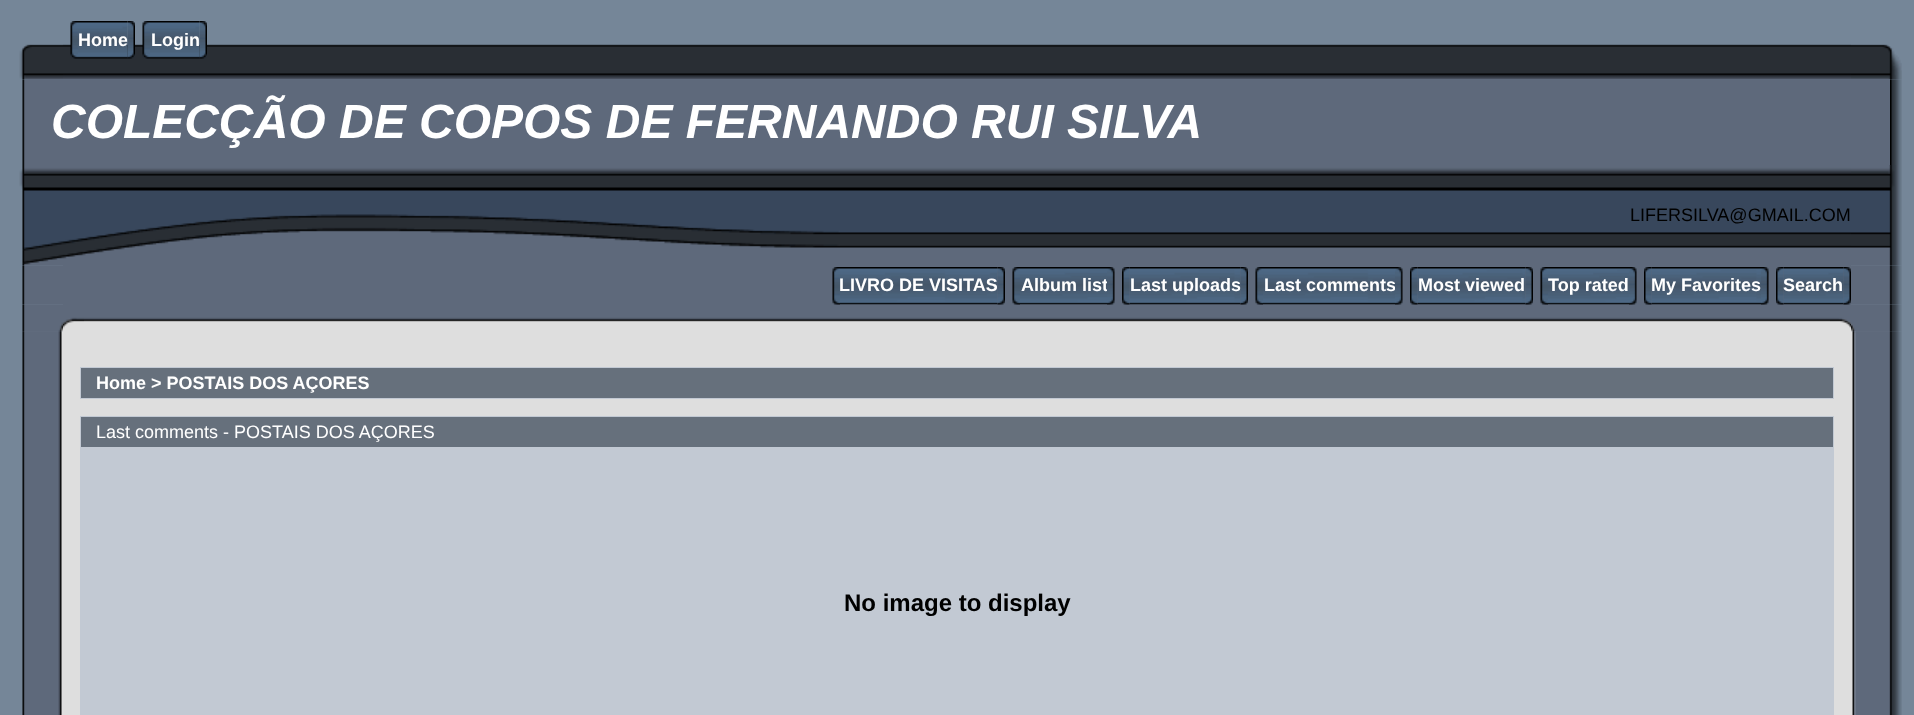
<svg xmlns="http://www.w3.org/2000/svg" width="1914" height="715">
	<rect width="100%" height="100%" fill="#758698" />
	<image x="63" y="44" width="1788" height="35" href="assets/img1.png" />
	<image x="70" y="21" width="8" height="38" href="assets/img2.png" />
	<image x="78" y="21" width="50" height="38" href="assets/img3.png" />
	<text x="78" y="46" font-family="Liberation Sans" font-size="18" font-weight="700" fill="#FFFFFF">Home</text>
	<image x="127" y="21" width="8" height="38" href="assets/img4.png" />
	<image x="142" y="21" width="8" height="38" href="assets/img2.png" />
	<image x="150" y="21" width="50" height="38" href="assets/img5.png" />
	<text x="151" y="46" font-family="Liberation Sans" font-size="18" font-weight="700" fill="#FFFFFF">Login</text>
	<image x="199" y="21" width="8" height="38" href="assets/img6.png" />
	<image x="19" y="44" width="44" height="36" href="assets/img7.png" />
	<image x="1851" y="44" width="51" height="36" href="assets/img8.png" />
	<image x="22" y="79" width="5" height="86" href="assets/img9.png" />
	<rect x="27" y="79" width="1863" height="86" fill="#5E697B" />
	<text x="51" y="138" font-family="Liberation Sans" font-size="48" font-weight="700" font-style="italic" fill="#FFFFFF">COLECÇÃO DE COPOS DE FERNANDO RUI SILVA</text>
	<image x="1890" y="79" width="12" height="86" href="assets/img10.png" />
	<image x="19" y="165" width="821" height="101" href="assets/img11.png" />
	<image x="840" y="165" width="1011" height="100" href="assets/img12.png" />
	<text x="1630" y="221" font-family="Liberation Sans" font-size="18" fill="#000000">LIFERSILVA@GMAIL.COM</text>
	<image x="1851" y="165" width="51" height="101" href="assets/img13.png" />
	<image x="22" y="265" width="41" height="40" href="assets/img14.png" />
	<rect x="63" y="265" width="1788" height="40" fill="#5E697B" />
	<image x="840" y="267" width="158" height="38" href="assets/img16.png" />
	<image x="1020" y="267" width="87" height="38" href="assets/img18.png" />
	<image x="1129" y="267" width="112" height="38" href="assets/img21.png" />
	<image x="1263" y="267" width="132" height="38" href="assets/img23.png" />
	<image x="1417" y="267" width="109" height="38" href="assets/img26.png" />
	<image x="1548" y="267" width="81" height="38" href="assets/img28.png" />
	<image x="1651" y="267" width="110" height="38" href="assets/img29.png" />
	<image x="1783" y="267" width="61" height="38" href="assets/img31.png" />
	<image x="84" y="304" width="1746" height="27" href="assets/img36.png" />
	<image x="832" y="267" width="8" height="38" href="assets/img15.png" />
	<text x="839" y="291" font-family="Liberation Sans" font-size="18" font-weight="700" fill="#FFFFFF">LIVRO DE VISITAS</text>
	<image x="997" y="267" width="8" height="38" href="assets/img17.png" />
	<image x="1012" y="267" width="8" height="38" href="assets/img15.png" />
	<text x="1021" y="291" font-family="Liberation Sans" font-size="18" font-weight="700" fill="#FFFFFF">Album list</text>
	<image x="1107" y="267" width="8" height="38" href="assets/img19.png" />
	<image x="1122" y="267" width="8" height="38" href="assets/img20.png" />
	<text x="1130" y="291" font-family="Liberation Sans" font-size="18" font-weight="700" fill="#FFFFFF">Last uploads</text>
	<image x="1240" y="267" width="8" height="38" href="assets/img22.png" />
	<image x="1255" y="267" width="8" height="38" href="assets/img15.png" />
	<text x="1264" y="291" font-family="Liberation Sans" font-size="18" font-weight="700" fill="#FFFFFF">Last comments</text>
	<image x="1395" y="267" width="8" height="38" href="assets/img24.png" />
	<image x="1410" y="267" width="8" height="38" href="assets/img25.png" />
	<text x="1418" y="291" font-family="Liberation Sans" font-size="18" font-weight="700" fill="#FFFFFF">Most viewed</text>
	<image x="1525" y="267" width="8" height="38" href="assets/img27.png" />
	<image x="1540" y="267" width="8" height="38" href="assets/img15.png" />
	<text x="1548" y="291" font-family="Liberation Sans" font-size="18" font-weight="700" fill="#FFFFFF">Top rated</text>
	<image x="1629" y="267" width="8" height="38" href="assets/img24.png" />
	<image x="1644" y="267" width="8" height="38" href="assets/img25.png" />
	<text x="1651" y="291" font-family="Liberation Sans" font-size="18" font-weight="700" fill="#FFFFFF">My Favorites</text>
	<image x="1761" y="267" width="8" height="38" href="assets/img24.png" />
	<image x="1776" y="267" width="8" height="38" href="assets/img30.png" />
	<text x="1783" y="291" font-family="Liberation Sans" font-size="18" font-weight="700" fill="#FFFFFF">Search</text>
	<image x="1830" y="304" width="21" height="27" href="assets/img37.png" />
	<image x="1843" y="267" width="8" height="38" href="assets/img32.png" />
	<image x="1851" y="265" width="51" height="40" href="assets/img33.png" />
	<image x="22" y="304" width="41" height="28" href="assets/img34.png" />
	<image x="63" y="305" width="21" height="26" href="assets/img35.png" />
	<image x="1851" y="304" width="51" height="28" href="assets/img38.png" />
	<image x="22" y="331" width="41" height="384" href="assets/img39.png" />
	<image x="22" y="331" width="41" height="1" href="assets/img40.png" />
	<rect x="63" y="331" width="1788" height="384" fill="#DEDEDE" />
	<rect x="80" y="367" width="1754" height="32" fill="#C2C9D3" />
	<rect x="81" y="368" width="1752" height="30" fill="#66707C" />
	<text x="96" y="389" font-family="Liberation Sans" font-size="18" font-weight="700" fill="#FFFFFF">Home &gt; POSTAIS DOS AÇORES</text>
	<rect x="80" y="416" width="1754" height="299" fill="#C2C9D3" />
	<rect x="81" y="417" width="1752" height="30" fill="#66707C" />
	<text x="96" y="438" font-family="Liberation Sans" font-size="18" fill="#FFFFFF">Last comments - POSTAIS DOS AÇORES</text>
	<text x="844" y="611" font-family="Liberation Sans" font-size="24" font-weight="700" fill="#000000">No image to display</text>
	<image x="1851" y="331" width="51" height="384" href="assets/img41.png" />
	<image x="1851" y="331" width="48" height="1" href="assets/img42.png" />
</svg>
